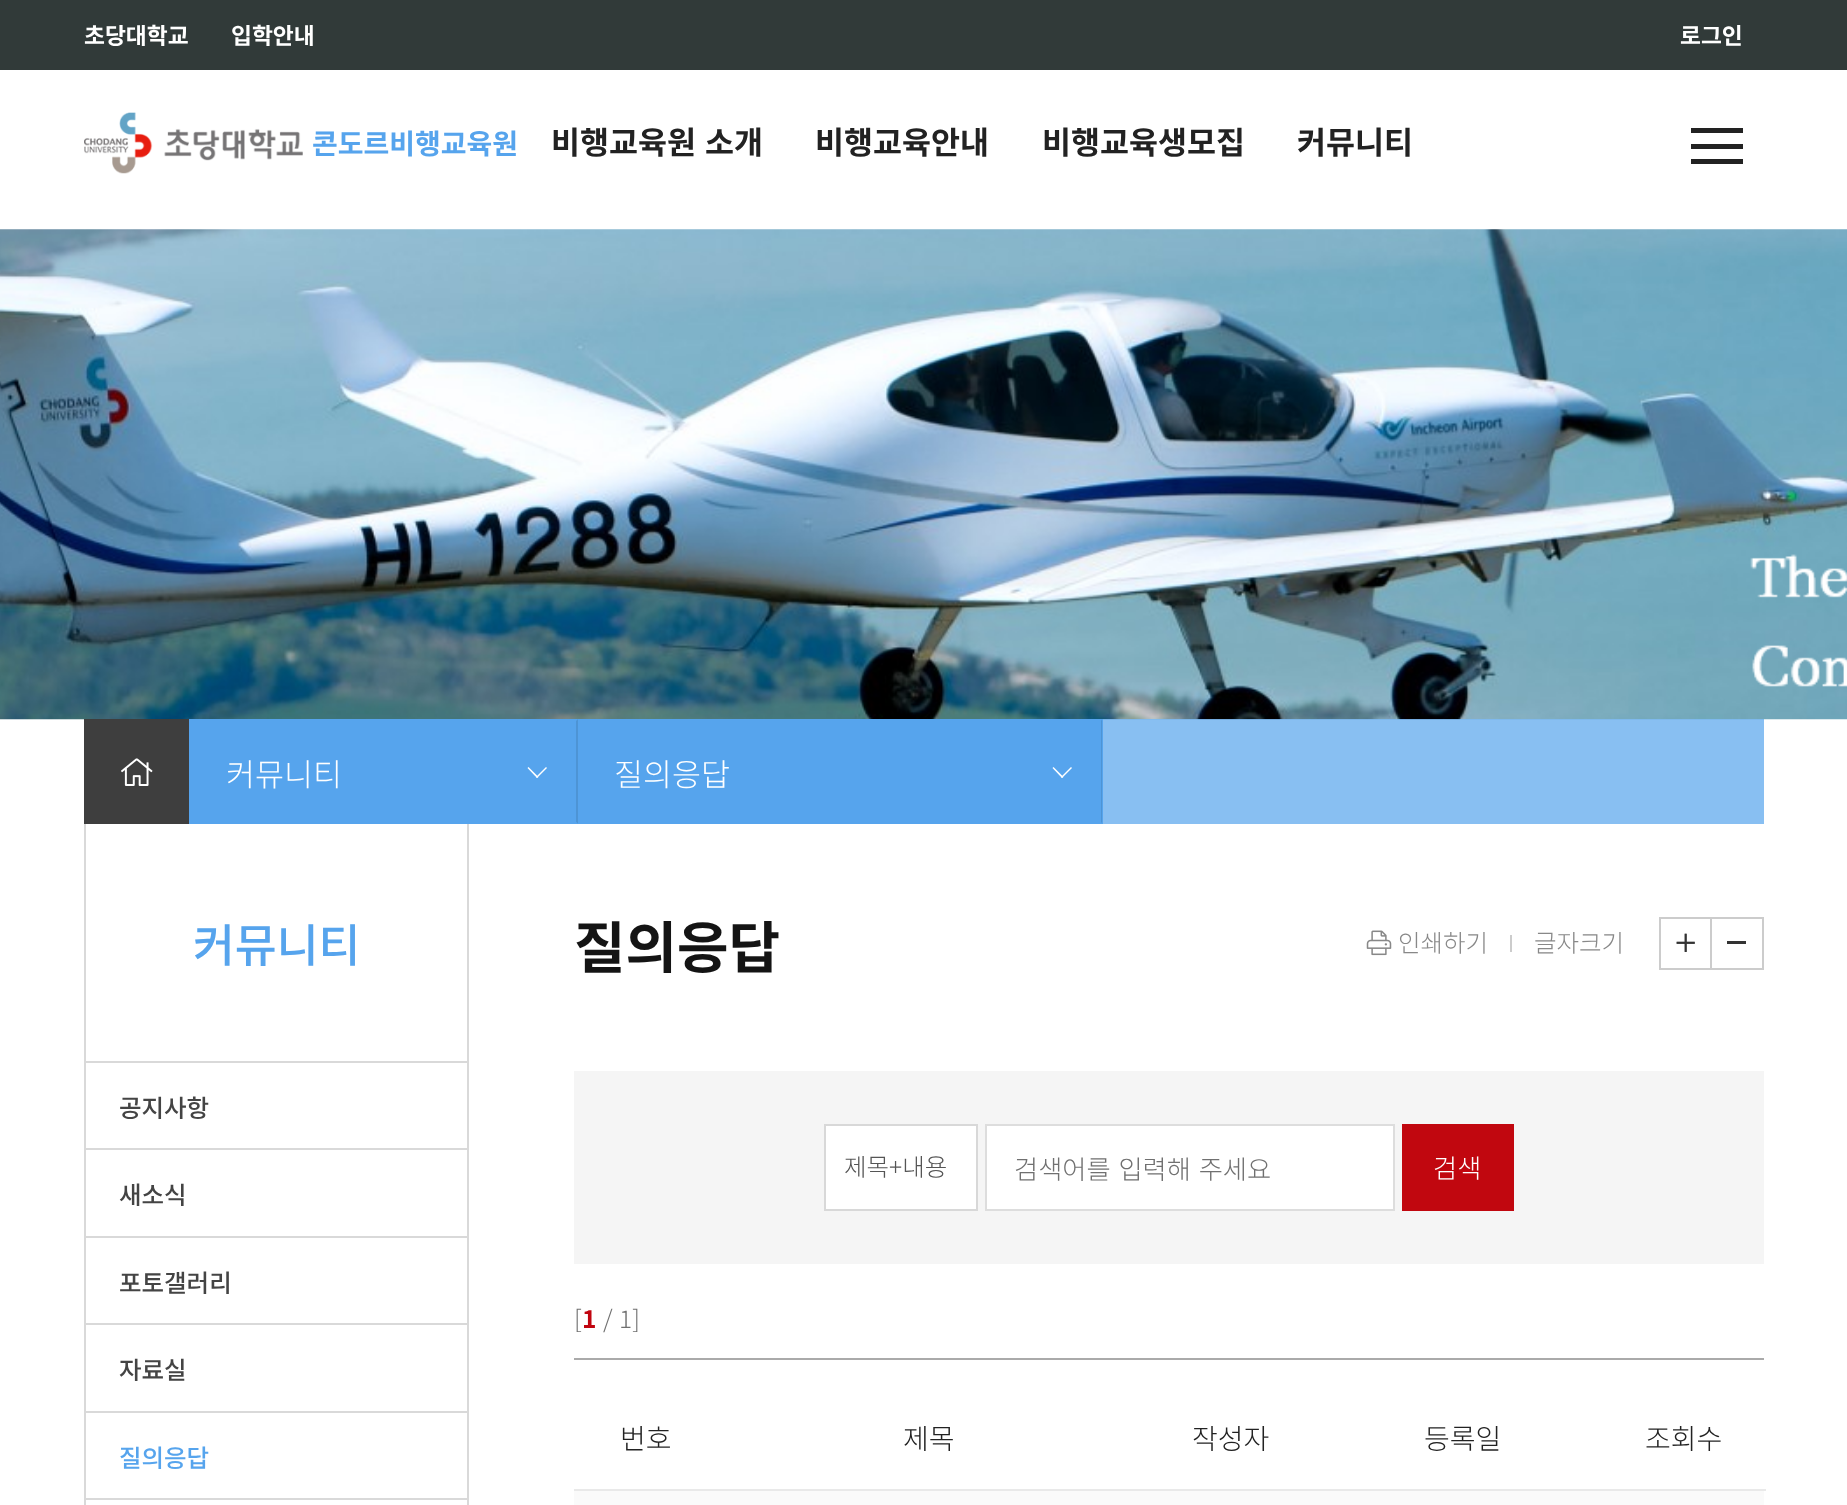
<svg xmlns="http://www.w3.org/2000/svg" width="1847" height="1505">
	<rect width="100%" height="100%" fill="#FFFFFF" />
	<rect x="0" y="0" width="1847" height="70" fill="#313A39" />
	<g font-family="Noto Sans KR" font-size="22.75" font-weight="700" fill="#FFFFFF">
		<text x="84" y="44">초당대학교</text>
		<text x="231" y="44">입학안내</text>
		<text x="1680" y="44">로그인</text>
	</g>
	<image x="84" y="112" width="219" height="62" href="assets/img1.png" />
	<text x="312" y="154" font-family="Noto Sans KR" font-size="28" font-weight="700" fill="#56A4ED">콘도르비행교육원</text>
	<g font-family="Noto Sans KR" font-size="31.5" font-weight="700" fill="#222222">
		<text x="551" y="154" word-spacing="2">비행교육원 소개</text>
		<text x="815" y="154">비행교육안내</text>
		<text x="1042" y="154">비행교육생모집</text>
		<text x="1297" y="154">커뮤니티</text>
	</g>
	<rect x="1691" y="128" width="52" height="5" fill="#222222" />
	<rect x="1691" y="144" width="52" height="5" fill="#222222" />
	<rect x="1691" y="159" width="52" height="5" fill="#222222" />
	<image x="0" y="229" width="1847" height="491" href="assets/img2.png" />
	<rect x="1103" y="719" width="661" height="105" fill="#55A4ED" fill-opacity="0.7" />
	<rect x="84" y="719" width="105" height="105" fill="#3E3E3E" />
	<image x="121" y="758" width="32" height="28" href="assets/img3.png" />
	<rect x="189" y="719" width="914" height="105" fill="#56A4ED" />
	<path d="M578 719V824L576 822V721Z" fill="#4D94D5" />
	<path d="M578 824H189L191 822H576Z" fill="#56A4ED" />
	<text x="226" y="786" font-family="Noto Sans KR" font-size="31.5" font-weight="300" fill="#FFFFFF">커뮤니티</text>
	<path d="M546 767L547 768L537 778L536 777Z" fill="#FFFFFF" />
	<path d="M528.5 767L538.5 777L537 778L527.5 768Z" fill="#FFFFFF" />
	<path d="M1102 719V824L1101 822V721Z" fill="#4D94D5" />
	<path d="M1102 824H578L579 822H1101Z" fill="#56A4ED" />
	<text x="614" y="786" font-family="Noto Sans KR" font-size="31.5" font-weight="300" fill="#FFFFFF">질의응답</text>
	<path d="M1071 767L1072 768L1062 778L1061 777Z" fill="#FFFFFF" />
	<path d="M1053.5 767L1063.5 777L1062 778L1052.5 768Z" fill="#FFFFFF" />
	<rect x="84" y="1063" width="2" height="442" fill="#D9D9D9" />
	<rect x="467" y="824" width="2" height="238" fill="#D9D9D9" />
	<rect x="84" y="1061" width="385" height="2" fill="#D9D9D9" />
	<rect x="84" y="824" width="2" height="238" fill="#D9D9D9" />
	<text x="193" y="962" font-family="Noto Sans KR" font-size="45.5" font-weight="500" fill="#56A4ED">커뮤니티</text>
	<rect x="467" y="1062" width="2" height="443" fill="#D9D9D9" />
	<rect x="86" y="1148" width="381" height="2" fill="#D9D9D9" />
	<text x="119" y="1117" font-family="Noto Sans KR" font-size="24.5" font-weight="500" fill="#444444">공지사항</text>
	<rect x="86" y="1236" width="381" height="2" fill="#D9D9D9" />
	<text x="119" y="1204" font-family="Noto Sans KR" font-size="24.5" font-weight="500" fill="#444444">새소식</text>
	<rect x="86" y="1323" width="381" height="2" fill="#D9D9D9" />
	<text x="119" y="1292" font-family="Noto Sans KR" font-size="24.5" font-weight="500" fill="#444444">포토갤러리</text>
	<rect x="86" y="1411" width="381" height="2" fill="#D9D9D9" />
	<text x="119" y="1379" font-family="Noto Sans KR" font-size="24.5" font-weight="500" fill="#444444">자료실</text>
	<rect x="86" y="1498" width="381" height="2" fill="#D9D9D9" />
	<text x="119" y="1467" font-family="Noto Sans KR" font-size="24.5" font-weight="500" fill="#56A4ED">질의응답</text>
	<text x="574" y="968" font-family="Noto Sans KR" font-size="56" font-weight="700" fill="#141414">질의응답</text>
	<image x="1366" y="930" width="26" height="26" href="assets/img4.png" />
	<text x="1398" y="952" font-family="Noto Sans KR" font-size="24.5" font-weight="300" fill="#888888">인쇄하기</text>
	<rect x="1510" y="935" width="2" height="17" fill="#CCCCCC" />
	<text x="1534" y="952" font-family="Noto Sans KR" font-size="24.5" font-weight="300" fill="#888888">글자크기</text>
	<rect x="1660" y="918" width="51" height="51" fill="none" stroke="#CCCCCC" stroke-width="2" />
	<image x="1676" y="933" width="19" height="19" href="assets/img5.png" />
	<rect x="1712" y="917" width="52" height="2" fill="#CCCCCC" />
	<rect x="1762" y="917" width="2" height="53" fill="#CCCCCC" />
	<rect x="1712" y="968" width="52" height="2" fill="#CCCCCC" />
	<rect x="1727" y="941" width="19" height="3" fill="#333333" />
	<rect x="574" y="1071" width="1190" height="193" fill="#F5F5F5" />
	<rect x="825" y="1125" width="152" height="85" fill="#FFFFFF" stroke="#D8D8D8" stroke-width="2" />
	<text x="844" y="1176" font-family="Noto Sans KR" font-size="24.5" font-weight="300" fill="#555555">제목+내용</text>
	<rect x="986" y="1125" width="408" height="85" fill="#FFFFFF" stroke="#DDDDDD" stroke-width="2" />
	<text x="1014" y="1179" word-spacing="2" font-family="Noto Sans KR" font-size="26.25" font-weight="300" fill="#707070">검색어를 입력해 주세요</text>
	<rect x="1402" y="1124" width="112" height="87" fill="#C1070F" />
	<text x="1433" y="1178" font-family="Noto Sans KR" font-size="26.25" font-weight="300" fill="#FFFFFF">검색</text>
	<text x="574" y="1328" font-family="Noto Sans KR" font-size="24.5" font-weight="300" fill="#707070">[</text>
	<text x="582" y="1328" font-family="Noto Sans KR" font-size="24.5" font-weight="700" fill="#C1050F">1</text>
	<text x="603" y="1328" word-spacing="1" font-family="Noto Sans KR" font-size="24.5" font-weight="300" fill="#707070">/ 1]</text>
	<rect x="574" y="1358" width="1190" height="2" fill="#AAAAAA" />
	<g font-family="Noto Sans KR" font-size="28" font-weight="300" fill="#222222">
		<text x="620" y="1449">번호</text>
		<text x="903" y="1449">제목</text>
		<text x="1192" y="1449">작성자</text>
		<text x="1424" y="1449">등록일</text>
	</g>
	<rect x="574" y="1489" width="1192" height="2" fill="#E9E9E9" />
	<text x="1645" y="1449" font-family="Noto Sans KR" font-size="28" font-weight="300" fill="#222222">조회수</text>
	<rect x="574" y="1491" width="1190" height="14" fill="#FAFAFA" />
</svg>
